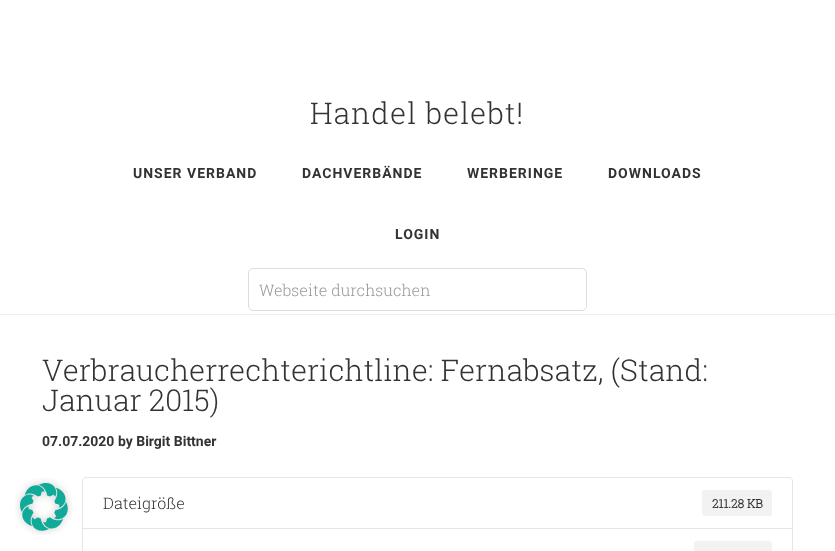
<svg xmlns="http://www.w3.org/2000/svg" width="835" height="551">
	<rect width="100%" height="100%" fill="#FFFFFF" />
	<rect x="0" y="314" width="835" height="1" fill="#EEEEEE" />
	<text x="310" y="124" font-family="Roboto Slab" font-size="30" font-weight="300" letter-spacing="1" fill="#333333">Handel belebt!</text>
	<g font-family="Roboto" font-size="14" font-weight="700" letter-spacing="1" fill="#333333">
		<text x="133" y="178">UNSER VERBAND</text>
		<text x="302" y="178">DACHVERBÄNDE</text>
		<text x="467" y="178">WERBERINGE</text>
		<text x="608" y="178">DOWNLOADS</text>
		<text x="395" y="239">LOGIN</text>
	</g>
	<rect x="248.5" y="268.5" width="338" height="42" rx="4.5" fill="none" stroke="#DDDDDD" />
	<text x="259" y="296" font-family="Roboto Slab" font-size="16" font-weight="300" fill="#999999">Webseite durchsuchen</text>
	<g font-family="Roboto Slab" font-size="30" font-weight="300" fill="#333333">
		<text x="42" y="381">Verbraucherrechterichtline: Fernabsatz, (Stand:</text>
		<text x="42" y="411">Januar 2015)</text>
	</g>
	<text x="42" y="446" font-family="Roboto" font-size="14" font-weight="700" fill="#333333">07.07.2020 by Birgit Bittner</text>
	<path d="M86 477.5H789C791 477.5 792.5 479 792.5 481V528.5H82.5V481C82.5 479 84 477.5 86 477.5Z" fill="none" stroke="#E5E5E5" />
	<text x="103" y="509" font-family="Roboto Slab" font-size="16" font-weight="300" fill="#333333">Dateigröße</text>
	<rect x="702" y="490" width="70" height="26" rx="3" fill="#F2F2F2" />
	<text x="712" y="508" font-family="Roboto Slab" font-size="12" font-weight="700" fill="#333333">211.28 KB</text>
	<rect x="82.5" y="528.5" width="710" height="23" fill="none" stroke="#E5E5E5" />
	<rect x="694" y="541" width="78" height="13" rx="3" fill="#F2F2F2" />
	<image x="15" y="478" width="57" height="57" href="assets/img1.png" />
</svg>
